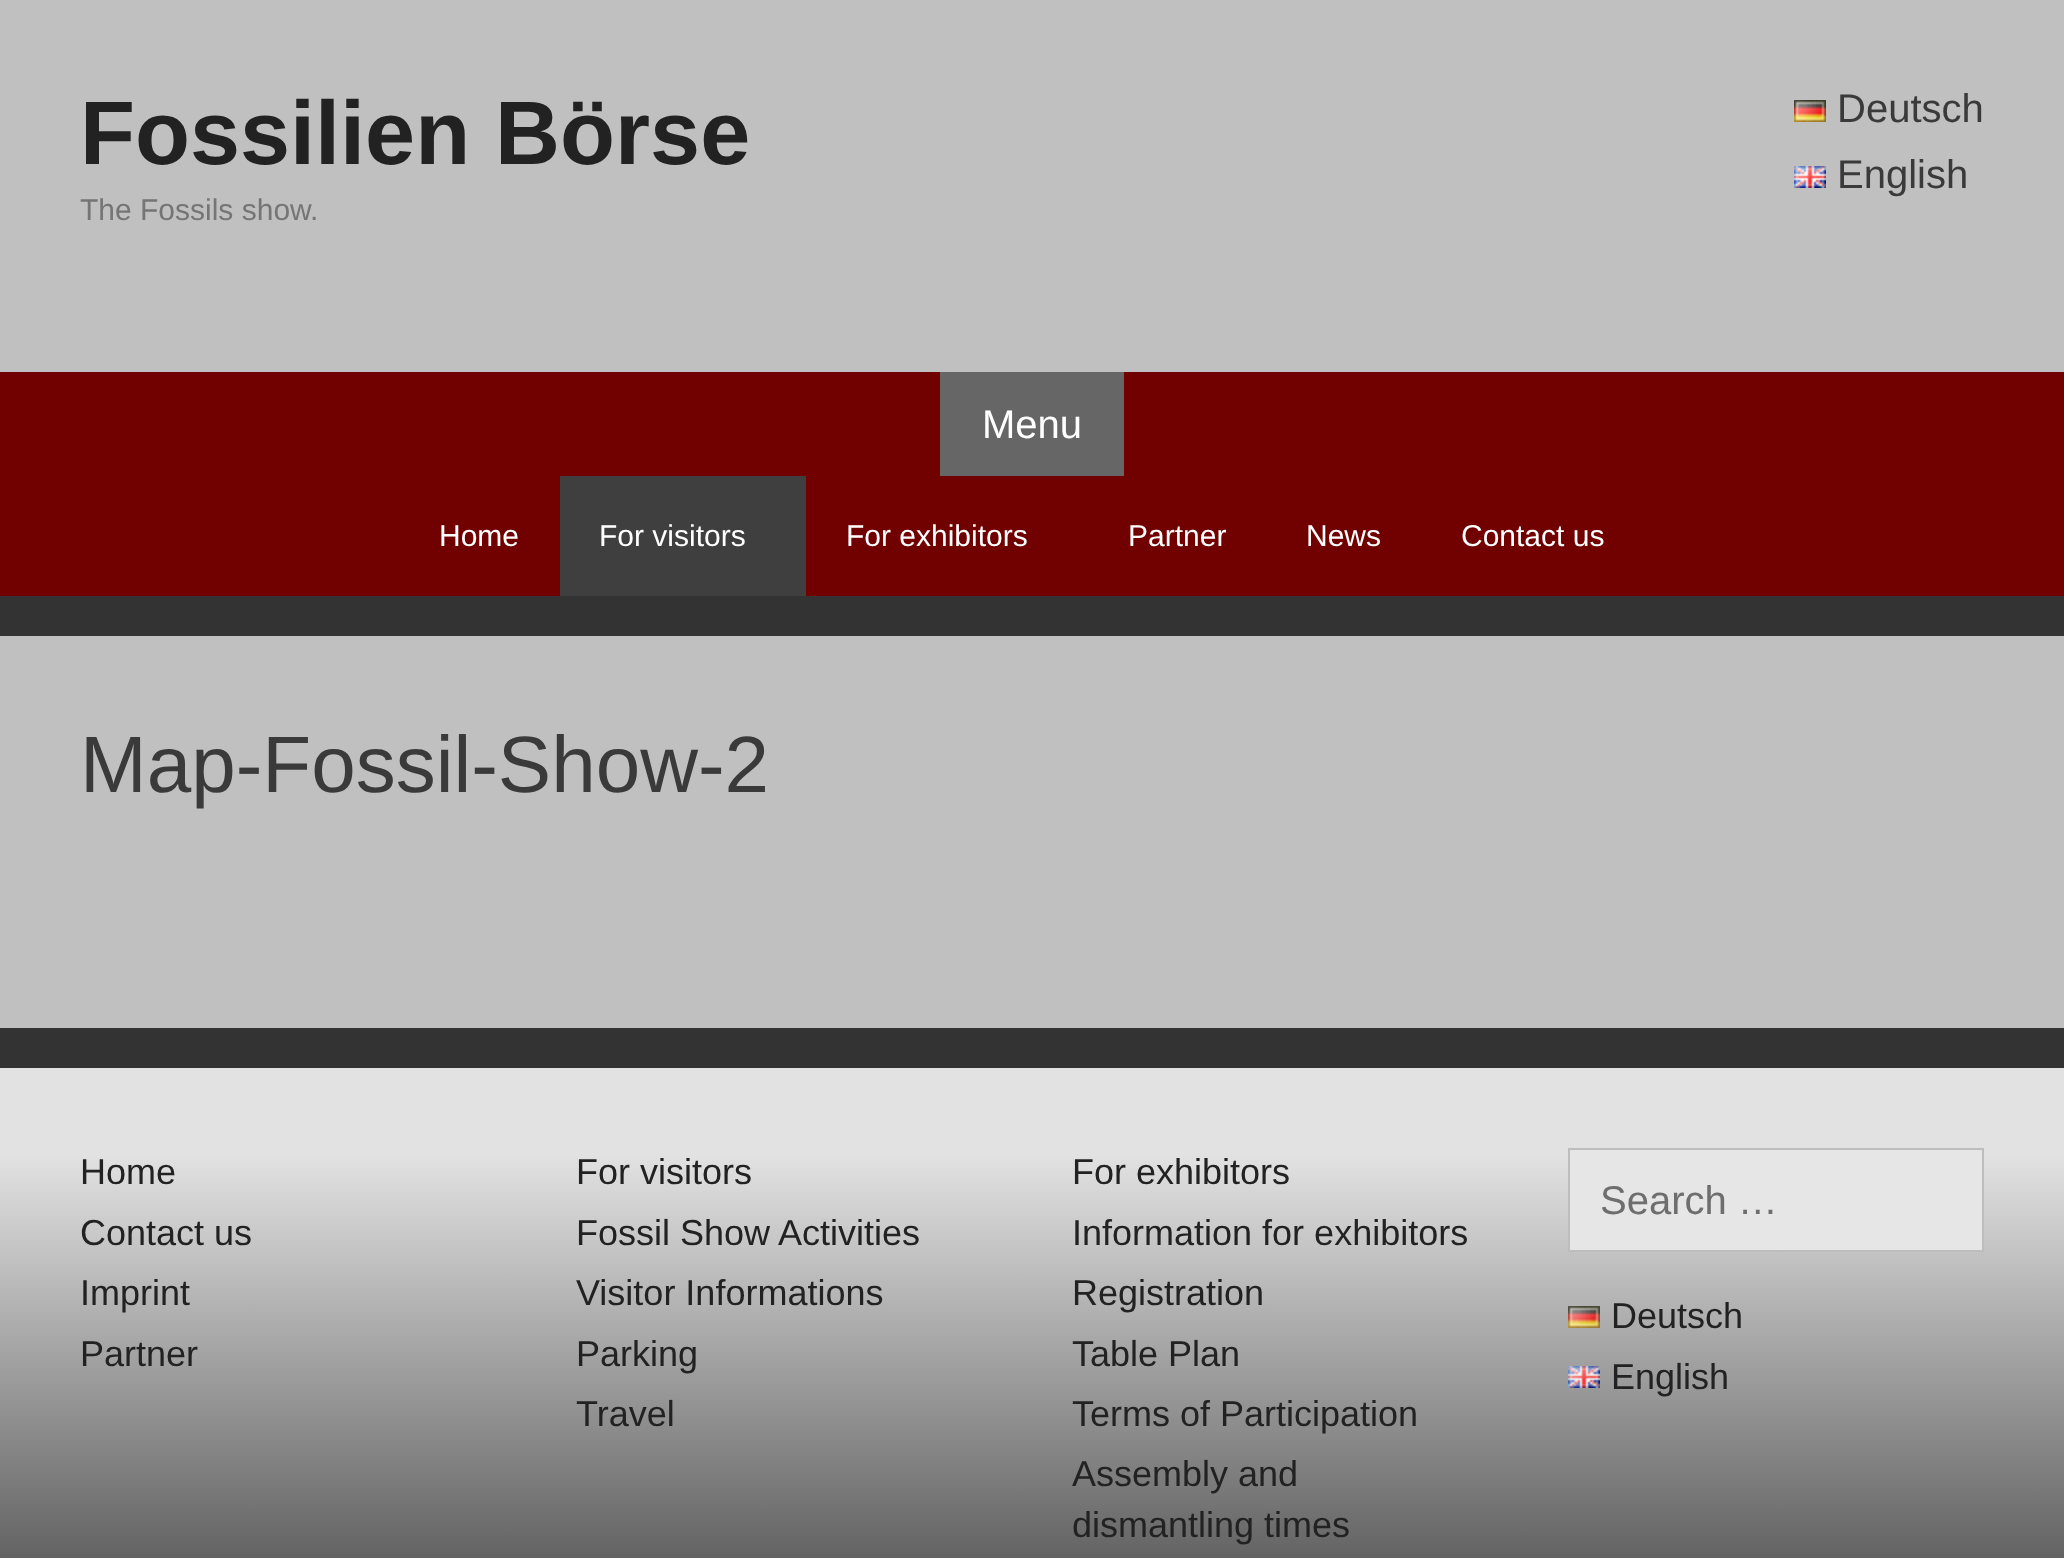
<svg xmlns="http://www.w3.org/2000/svg" width="2064" height="1558">
	<defs>
		<linearGradient id="g1" gradientUnits="userSpaceOnUse" x1="1032" y1="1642" x2="1032" y2="1068"><stop offset="0" stop-color="#494949" /><stop offset="0.85" stop-color="#E2E2E2" /></linearGradient>
	</defs>
	<rect width="100%" height="100%" fill="#333333" />
	<rect x="0" y="0" width="2064" height="372" fill="#C0C0C0" />
	<text x="80" y="164" font-family="Liberation Sans" font-size="90" font-weight="700" fill="#222222">Fossilien Börse</text>
	<text x="80" y="220" font-family="Liberation Sans" font-size="30" fill="#757575">The Fossils show.</text>
	<image x="1794" y="100" width="32" height="22" href="assets/img1.png" />
	<text x="1837" y="122" font-family="Liberation Sans" font-size="40" fill="#3A3A3A">Deutsch</text>
	<image x="1794" y="166" width="32" height="22" href="assets/img2.png" />
	<text x="1837" y="188" font-family="Liberation Sans" font-size="40" fill="#3A3A3A">English</text>
	<rect x="0" y="372" width="2064" height="224" fill="#710000" />
	<rect x="940" y="372" width="184" height="104" fill="#666666" />
	<text x="982" y="438" font-family="Liberation Sans" font-size="40" fill="#FFFFFF">Menu</text>
	<text x="439" y="546" font-family="Liberation Sans" font-size="30" fill="#FFFFFF">Home</text>
	<rect x="560" y="476" width="246" height="120" fill="#3F3F3F" />
	<g font-family="Liberation Sans" font-size="30" fill="#FFFFFF">
		<text x="599" y="546">For visitors</text>
		<text x="846" y="546">For exhibitors</text>
		<text x="1128" y="546">Partner</text>
		<text x="1306" y="546">News</text>
		<text x="1461" y="546">Contact us</text>
	</g>
	<rect x="0" y="636" width="2064" height="392" fill="#C0C0C0" />
	<text x="80" y="792" font-family="Liberation Sans" font-size="80" fill="#3A3A3A">Map-Fossil-Show-2</text>
	<rect x="0" y="1068" width="2064" height="490" fill="url(#g1)" />
	<g font-family="Liberation Sans" font-size="36" fill="#222222">
		<text x="80" y="1184">Home</text>
		<text x="80" y="1245">Contact us</text>
		<text x="80" y="1305">Imprint</text>
		<text x="80" y="1366">Partner</text>
		<text x="576" y="1184">For visitors</text>
		<text x="576" y="1245">Fossil Show Activities</text>
		<text x="576" y="1305">Visitor Informations</text>
		<text x="576" y="1366">Parking</text>
		<text x="576" y="1426">Travel</text>
		<text x="1072" y="1184">For exhibitors</text>
		<text x="1072" y="1245">Information for exhibitors</text>
		<text x="1072" y="1305">Registration</text>
		<text x="1072" y="1366">Table Plan</text>
		<text x="1072" y="1426">Terms of Participation</text>
		<text x="1072" y="1486">Assembly and</text>
		<text x="1072" y="1537">dismantling times</text>
	</g>
	<rect x="1569" y="1149" width="414" height="102" fill="#E6E6E6" stroke="#BDBDBD" stroke-width="2" />
	<text x="1600" y="1214" font-family="Liberation Sans" font-size="40" fill="#6E6E6E">Search …</text>
	<image x="1568" y="1306" width="32" height="22" href="assets/img3.png" />
	<text x="1611" y="1328" font-family="Liberation Sans" font-size="36" fill="#222222">Deutsch</text>
	<image x="1568" y="1366" width="32" height="22" href="assets/img4.png" />
	<text x="1611" y="1389" font-family="Liberation Sans" font-size="36" fill="#222222">English</text>
</svg>
